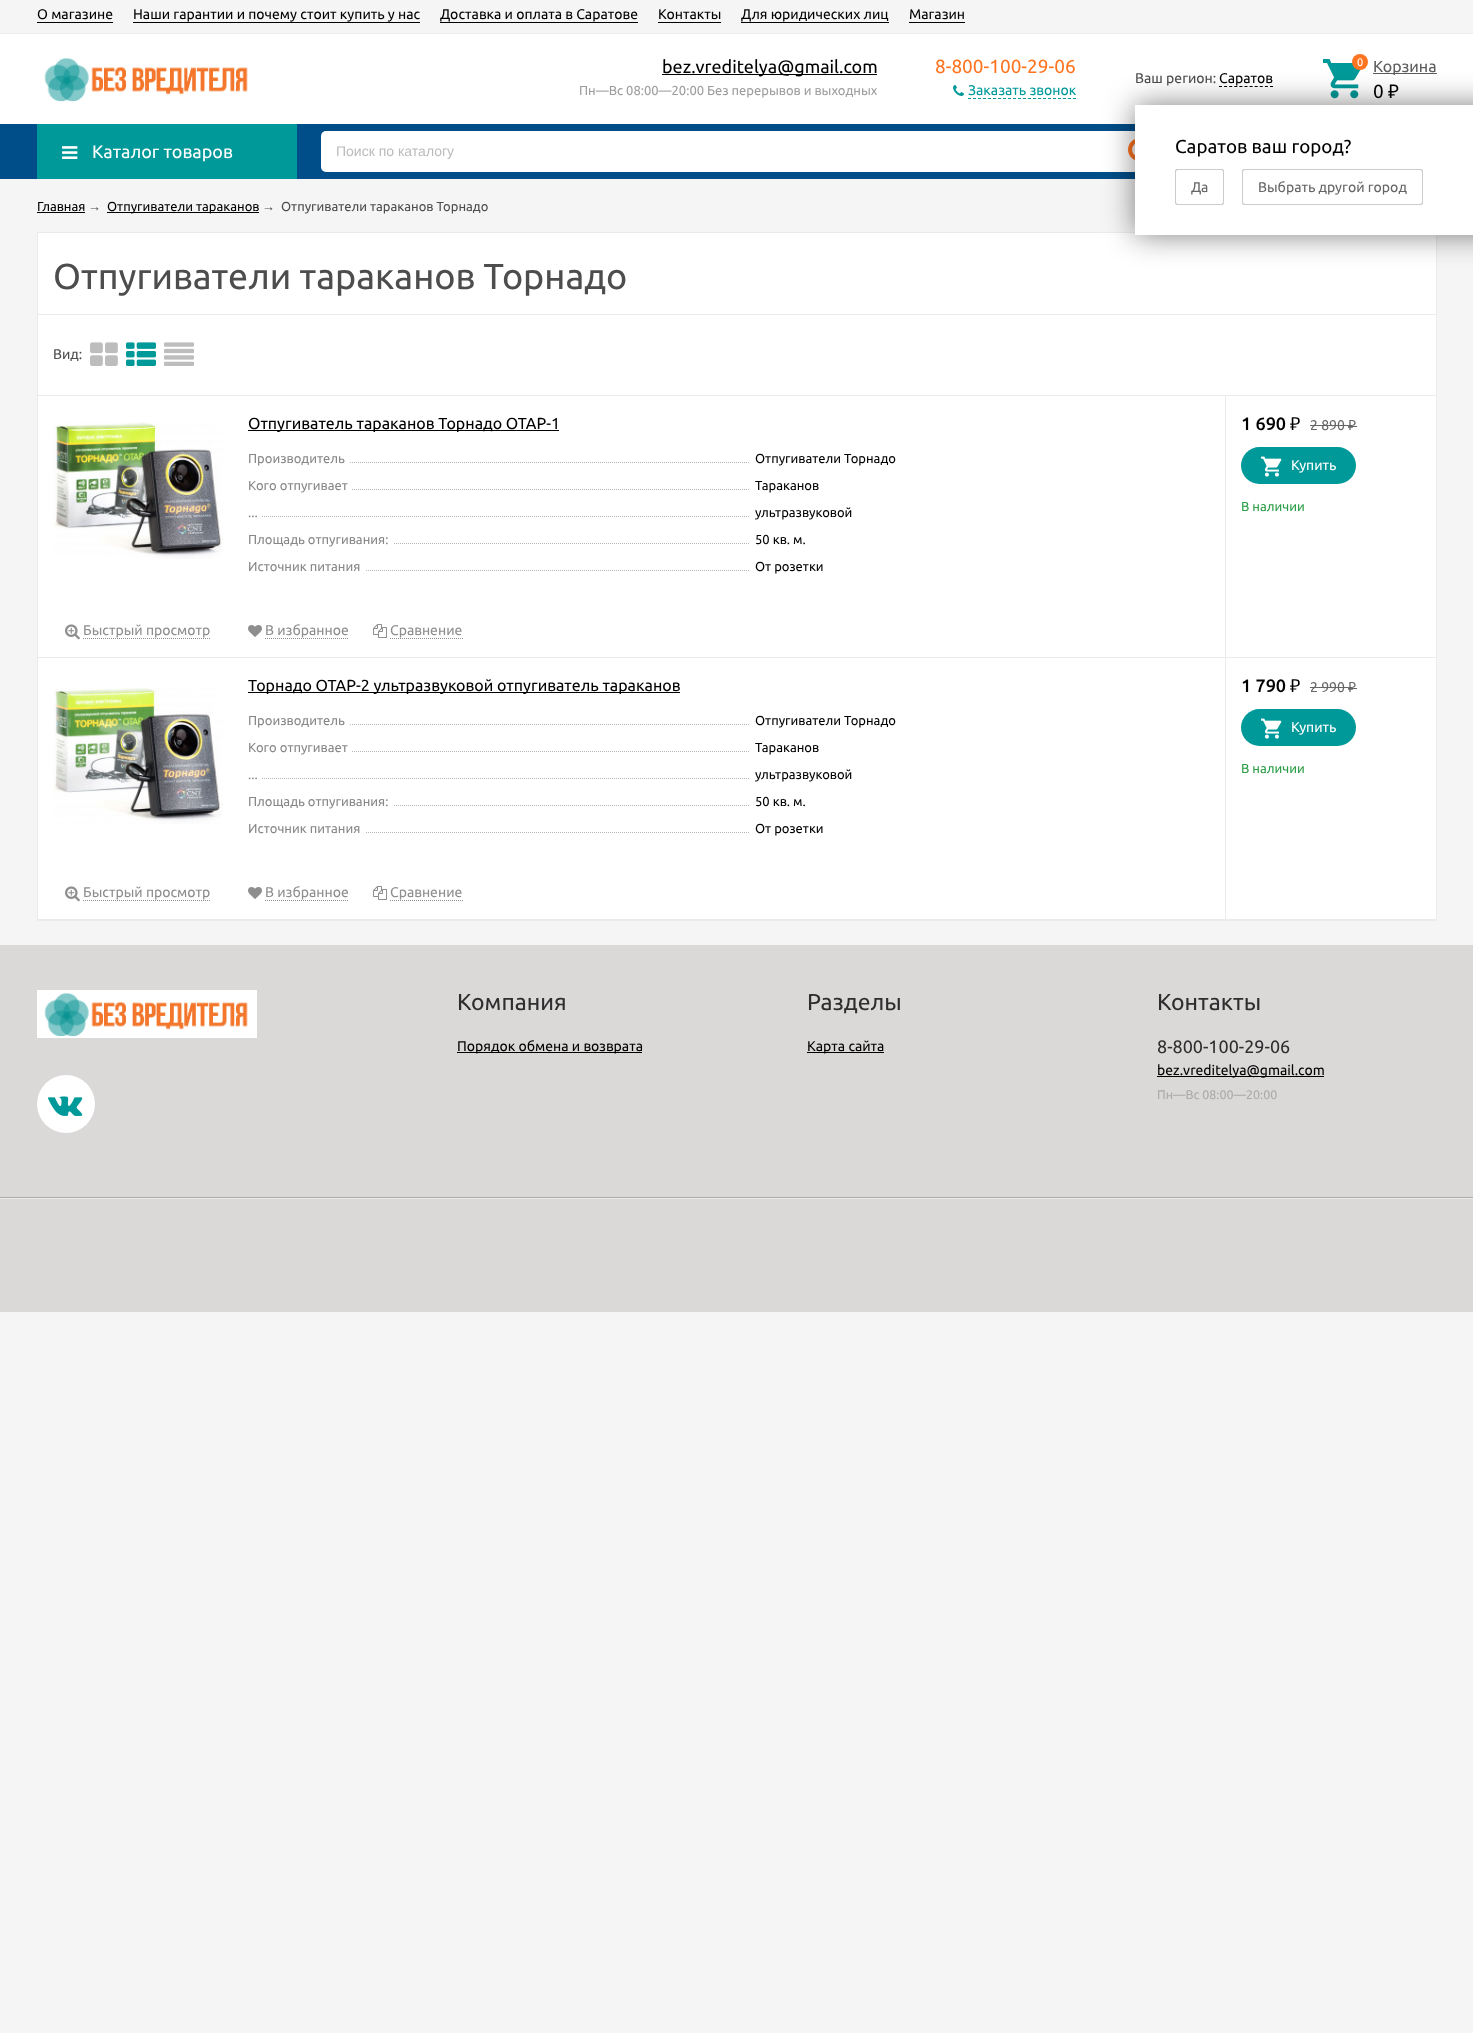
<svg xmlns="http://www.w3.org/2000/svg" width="1473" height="2033">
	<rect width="100%" height="100%" fill="#F5F5F6" />
	<rect x="0" y="33" width="1473" height="1" fill="#EBEBEB" />
	<text x="37" y="19" font-family="Ubuntu" font-size="14" fill="#000000">О магазине</text>
	<rect x="37" y="22" width="76" height="1" fill="#000000" />
	<text x="133" y="19" font-family="Ubuntu" font-size="14" fill="#000000">Наши гарантии и почему стоит купить у нас</text>
	<rect x="133" y="22" width="287" height="1" fill="#000000" />
	<text x="440" y="19" font-family="Ubuntu" font-size="14" fill="#000000">Доставка и оплата в Саратове</text>
	<rect x="440" y="22" width="198" height="1" fill="#000000" />
	<text x="658" y="19" font-family="Ubuntu" font-size="14" fill="#000000">Контакты</text>
	<rect x="658" y="22" width="63" height="1" fill="#000000" />
	<text x="741" y="19" font-family="Ubuntu" font-size="14" fill="#000000">Для юридических лиц</text>
	<rect x="741" y="22" width="148" height="1" fill="#000000" />
	<text x="909" y="19" font-family="Ubuntu" font-size="14" fill="#000000">Магазин</text>
	<rect x="909" y="22" width="56" height="1" fill="#000000" />
	<rect x="0" y="124" width="1135" height="55" fill="#004E89" />
	<rect x="37" y="124" width="260" height="55" fill="#009999" />
	<image x="62" y="146" width="16" height="13" href="assets/img1.png" />
	<text x="92" y="158" font-family="Ubuntu" font-size="18" fill="#FFFFFF">Каталог товаров</text>
	<rect x="321" y="131" width="843" height="41" rx="5" fill="#FFFFFF" />
	<text x="336" y="156" font-family="Liberation Sans" font-size="14" fill="#BBBBBB">Поиск по каталогу</text>
	<image x="1128" y="139" width="7" height="21" href="assets/img2.png" />
	<rect x="0" y="34" width="1473" height="90" fill="#FFFFFF" />
	<image x="44" y="58" width="204" height="44" href="assets/img3.png" />
	<rect x="662" y="74" width="215" height="1" fill="#000000" />
	<text x="662" y="73" font-family="Ubuntu" font-size="18" fill="#000000">bez.vreditelya@gmail.com</text>
	<text x="579" y="95" font-family="Ubuntu" font-size="13" fill="#9E9E9E">Пн—Вс 08:00—20:00 Без перерывов и выходных</text>
	<text x="935" y="73" font-family="Ubuntu" font-size="19" fill="#FF7420">8-800-100-29-06</text>
	<image x="953" y="85" width="11" height="11" href="assets/img4.png" />
	<text x="968" y="95" font-family="Ubuntu" font-size="14" fill="#009999">Заказать звонок</text>
	<path d="M968 98.5H1076" fill="none" stroke="#009999" stroke-dasharray="3 2" />
	<image x="1323" y="59" width="38" height="40" href="assets/img5.png" />
	<circle cx="1360" cy="62" r="8" fill="#FF7420" />
	<text x="1357" y="66" font-family="Ubuntu" font-size="11" fill="#FFFFFF">0</text>
	<rect x="1373" y="73" width="64" height="1" fill="#5D5D5D" />
	<text x="1373" y="72" font-family="Ubuntu" font-size="16" fill="#5D5D5D">Корзина</text>
	<text x="1373" y="98" font-family="Ubuntu" font-size="19" fill="#000000">0</text>
	<text x="1388" y="98" font-family="Noto Sans" font-size="19" fill="#000000">₽</text>
	<text x="1135" y="83" font-family="Ubuntu" font-size="14" fill="#4D4D4D">Ваш регион:</text>
	<text x="1219" y="83" font-family="Ubuntu" font-size="14" fill="#000000">Саратов</text>
	<path d="M1219 86.5H1273" fill="none" stroke="#000000" stroke-dasharray="3 2.1" />
	<rect x="38" y="233" width="1398" height="686" fill="#FFFFFF" />
	<rect x="37.5" y="232.5" width="1399" height="688" fill="none" stroke="#EBEBEB" />
	<rect x="1135" y="105" width="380" height="130" fill="#000000" fill-opacity="0.5" filter="blur(15px)" />
	<rect x="1135" y="105" width="338" height="130" fill="#FFFFFF" />
	<text x="1175" y="153" font-family="Ubuntu" font-size="18.75" fill="#000000">Саратов ваш город?</text>
	<rect x="1175" y="169" width="49" height="36" rx="3" fill="#000000" fill-opacity="0.3" filter="blur(0.5px)" />
	<rect x="1175.5" y="169.5" width="48" height="35" rx="2.5" fill="#FFFFFF" stroke="#CCCCCC" />
	<text x="1191" y="192" font-family="Ubuntu" font-size="14" fill="#666666">Да</text>
	<rect x="1242" y="169" width="181" height="36" rx="3" fill="#000000" fill-opacity="0.3" filter="blur(0.5px)" />
	<rect x="1242.5" y="169.5" width="180" height="35" rx="2.5" fill="#FFFFFF" stroke="#CCCCCC" />
	<text x="1258" y="192" font-family="Ubuntu" font-size="14" fill="#666666">Выбрать другой город</text>
	<text x="37" y="211" font-family="Ubuntu" font-size="13" fill="#000000">Главная</text>
	<rect x="37" y="212" width="48" height="1" fill="#000000" />
	<text x="88" y="211" font-family="Liberation Sans" font-size="13" fill="#4D4D4D">→</text>
	<rect x="107" y="212" width="152" height="1" fill="#000000" />
	<text x="107" y="211" font-family="Ubuntu" font-size="13" fill="#000000">Отпугиватели тараканов</text>
	<text x="262" y="211" font-family="Liberation Sans" font-size="13" fill="#4D4D4D">→</text>
	<text x="281" y="211" font-family="Ubuntu" font-size="13" fill="#4D4D4D">Отпугиватели тараканов Торнадо</text>
	<text x="53" y="289" font-family="Ubuntu" font-size="36" fill="#4D4D4D">Отпугиватели тараканов Торнадо</text>
	<rect x="38" y="314" width="1398" height="1" fill="#EBEBEB" />
	<text x="53" y="359" font-family="Ubuntu" font-size="14" fill="#4D4D4D">Вид:</text>
	<image x="90" y="342" width="28" height="24" href="assets/img6.png" />
	<image x="126" y="342" width="30" height="24" href="assets/img7.png" />
	<image x="164" y="342" width="30" height="24" href="assets/img8.png" />
	<rect x="38" y="395" width="1398" height="1" fill="#EBEBEB" />
	<rect x="38" y="657" width="1398" height="1" fill="#EBEBEB" />
	<image x="53" y="422" width="170" height="137" href="assets/img9.png" />
	<rect x="1225" y="396" width="1" height="261" fill="#EBEBEB" />
	<rect x="248" y="430" width="311" height="1" fill="#000000" />
	<text x="248" y="429" font-family="Ubuntu" font-size="16" fill="#000000">Отпугиватель тараканов Торнадо ОТАР-1</text>
	<path d="M248 462.5H750" fill="none" stroke="#B5B5B5" stroke-dasharray="1 1" />
	<rect x="248" y="462" width="101" height="1" fill="#FFFFFF" />
	<text x="248" y="463" font-family="Ubuntu" font-size="13" fill="#888888">Производитель</text>
	<text x="755" y="463" font-family="Ubuntu" font-size="13" fill="#000000">Отпугиватели Торнадо</text>
	<path d="M248 489.5H750" fill="none" stroke="#B5B5B5" stroke-dasharray="1 1" />
	<rect x="248" y="489" width="103" height="1" fill="#FFFFFF" />
	<text x="248" y="490" font-family="Ubuntu" font-size="13" fill="#888888">Кого отпугивает</text>
	<text x="755" y="490" font-family="Ubuntu" font-size="13" fill="#000000">Тараканов</text>
	<path d="M248 516.5H750" fill="none" stroke="#B5B5B5" stroke-dasharray="1 1" />
	<rect x="248" y="516" width="13" height="1" fill="#FFFFFF" />
	<text x="248" y="517" font-family="Ubuntu" font-size="13" fill="#888888">...</text>
	<text x="755" y="517" font-family="Ubuntu" font-size="13" fill="#000000">ультразвуковой</text>
	<path d="M248 543.5H750" fill="none" stroke="#B5B5B5" stroke-dasharray="1 1" />
	<rect x="248" y="543" width="145" height="1" fill="#FFFFFF" />
	<text x="248" y="544" font-family="Ubuntu" font-size="13" fill="#888888">Площадь отпугивания:</text>
	<text x="755" y="544" font-family="Ubuntu" font-size="13" fill="#000000">50 кв. м.</text>
	<path d="M248 570.5H750" fill="none" stroke="#B5B5B5" stroke-dasharray="1 1" />
	<rect x="248" y="570" width="117" height="1" fill="#FFFFFF" />
	<text x="248" y="571" font-family="Ubuntu" font-size="13" fill="#888888">Источник питания</text>
	<text x="755" y="571" font-family="Ubuntu" font-size="13" fill="#000000">От розетки</text>
	<text x="1241" y="430" font-family="Ubuntu" font-size="18" font-weight="500" fill="#000000">1 690</text>
	<text x="1290" y="430" font-family="Noto Sans" font-size="18" fill="#000000">₽</text>
	<text x="1310" y="430" font-family="Ubuntu" font-size="14" fill="#666666">2 890</text>
	<rect x="1310" y="425" width="38" height="1" fill="#666666" />
	<text x="1348" y="430" font-family="Noto Sans" font-size="14" fill="#666666">₽</text>
	<rect x="1348" y="426" width="9" height="1" fill="#666666" />
	<rect x="1241" y="447" width="115" height="37" rx="18.5" fill="#009999" />
	<image x="1261" y="456" width="21" height="21" href="assets/img10.png" />
	<text x="1291" y="470" font-family="Ubuntu" font-size="14" fill="#FFFFFF">Купить</text>
	<text x="1241" y="511" font-family="Ubuntu" font-size="13" fill="#2B9E46">В наличии</text>
	<path d="M83 638.5H210" fill="none" stroke="#8E8E8E" stroke-dasharray="1 1" />
	<image x="65" y="624" width="15" height="16" href="assets/img11.png" />
	<text x="83" y="635" font-family="Ubuntu" font-size="14" fill="#8E8E8E">Быстрый просмотр</text>
	<image x="248" y="625" width="14" height="12" href="assets/img12.png" />
	<text x="265" y="635" font-family="Ubuntu" font-size="14" fill="#8E8E8E">В избранное</text>
	<path d="M265 638.5H348" fill="none" stroke="#8E8E8E" stroke-dasharray="1 1" />
	<image x="373" y="624" width="14" height="14" href="assets/img13.png" />
	<text x="390" y="635" font-family="Ubuntu" font-size="14" fill="#8E8E8E">Сравнение</text>
	<path d="M390 638.5H463" fill="none" stroke="#8E8E8E" stroke-dasharray="1 1" />
	<rect x="38" y="919" width="1398" height="1" fill="#EBEBEB" />
	<image x="53" y="688" width="170" height="136" href="assets/img14.png" />
	<rect x="1225" y="658" width="1" height="261" fill="#EBEBEB" />
	<rect x="248" y="692" width="432" height="1" fill="#000000" />
	<text x="248" y="691" font-family="Ubuntu" font-size="16" fill="#000000">Торнадо ОТАР-2 ультразвуковой отпугиватель тараканов</text>
	<path d="M248 724.5H750" fill="none" stroke="#B5B5B5" stroke-dasharray="1 1" />
	<rect x="248" y="724" width="101" height="1" fill="#FFFFFF" />
	<text x="248" y="725" font-family="Ubuntu" font-size="13" fill="#888888">Производитель</text>
	<text x="755" y="725" font-family="Ubuntu" font-size="13" fill="#000000">Отпугиватели Торнадо</text>
	<path d="M248 751.5H750" fill="none" stroke="#B5B5B5" stroke-dasharray="1 1" />
	<rect x="248" y="751" width="103" height="1" fill="#FFFFFF" />
	<text x="248" y="752" font-family="Ubuntu" font-size="13" fill="#888888">Кого отпугивает</text>
	<text x="755" y="752" font-family="Ubuntu" font-size="13" fill="#000000">Тараканов</text>
	<path d="M248 778.5H750" fill="none" stroke="#B5B5B5" stroke-dasharray="1 1" />
	<rect x="248" y="778" width="13" height="1" fill="#FFFFFF" />
	<text x="248" y="779" font-family="Ubuntu" font-size="13" fill="#888888">...</text>
	<text x="755" y="779" font-family="Ubuntu" font-size="13" fill="#000000">ультразвуковой</text>
	<path d="M248 805.5H750" fill="none" stroke="#B5B5B5" stroke-dasharray="1 1" />
	<rect x="248" y="805" width="145" height="1" fill="#FFFFFF" />
	<text x="248" y="806" font-family="Ubuntu" font-size="13" fill="#888888">Площадь отпугивания:</text>
	<text x="755" y="806" font-family="Ubuntu" font-size="13" fill="#000000">50 кв. м.</text>
	<path d="M248 832.5H750" fill="none" stroke="#B5B5B5" stroke-dasharray="1 1" />
	<rect x="248" y="832" width="117" height="1" fill="#FFFFFF" />
	<text x="248" y="833" font-family="Ubuntu" font-size="13" fill="#888888">Источник питания</text>
	<text x="755" y="833" font-family="Ubuntu" font-size="13" fill="#000000">От розетки</text>
	<text x="1241" y="692" font-family="Ubuntu" font-size="18" font-weight="500" fill="#000000">1 790</text>
	<text x="1290" y="692" font-family="Noto Sans" font-size="18" fill="#000000">₽</text>
	<text x="1310" y="692" font-family="Ubuntu" font-size="14" fill="#666666">2 990</text>
	<rect x="1310" y="687" width="38" height="1" fill="#666666" />
	<text x="1348" y="692" font-family="Noto Sans" font-size="14" fill="#666666">₽</text>
	<rect x="1348" y="688" width="9" height="1" fill="#666666" />
	<rect x="1241" y="709" width="115" height="37" rx="18.5" fill="#009999" />
	<image x="1261" y="718" width="21" height="21" href="assets/img10.png" />
	<text x="1291" y="732" font-family="Ubuntu" font-size="14" fill="#FFFFFF">Купить</text>
	<text x="1241" y="773" font-family="Ubuntu" font-size="13" fill="#2B9E46">В наличии</text>
	<path d="M83 900.5H210" fill="none" stroke="#8E8E8E" stroke-dasharray="1 1" />
	<image x="65" y="886" width="15" height="16" href="assets/img11.png" />
	<text x="83" y="897" font-family="Ubuntu" font-size="14" fill="#8E8E8E">Быстрый просмотр</text>
	<image x="248" y="887" width="14" height="12" href="assets/img12.png" />
	<text x="265" y="897" font-family="Ubuntu" font-size="14" fill="#8E8E8E">В избранное</text>
	<path d="M265 900.5H348" fill="none" stroke="#8E8E8E" stroke-dasharray="1 1" />
	<image x="373" y="886" width="14" height="14" href="assets/img13.png" />
	<text x="390" y="897" font-family="Ubuntu" font-size="14" fill="#8E8E8E">Сравнение</text>
	<path d="M390 900.5H463" fill="none" stroke="#8E8E8E" stroke-dasharray="1 1" />
	<rect x="0" y="945" width="1473" height="367" fill="#DBD8D8" />
	<image x="37" y="990" width="220" height="48" href="assets/img15.png" />
	<circle cx="66" cy="1104" r="29" fill="#FFFFFF" />
	<image x="48" y="1096" width="35" height="20" href="assets/img16.png" />
	<text x="457" y="1010" font-family="Ubuntu" font-size="23" fill="#2E2E2E">Компания</text>
	<rect x="457" y="1052" width="185" height="1" fill="#000000" />
	<text x="457" y="1051" font-family="Ubuntu" font-size="14" fill="#000000">Порядок обмена и возврата</text>
	<text x="807" y="1010" font-family="Ubuntu" font-size="23" fill="#2E2E2E">Разделы</text>
	<rect x="807" y="1052" width="77" height="1" fill="#000000" />
	<text x="807" y="1051" font-family="Ubuntu" font-size="14" fill="#000000">Карта сайта</text>
	<text x="1157" y="1010" font-family="Ubuntu" font-size="23" fill="#2E2E2E">Контакты</text>
	<text x="1157" y="1053" font-family="Ubuntu" font-size="18" fill="#2E2E2E">8-800-100-29-06</text>
	<rect x="1157" y="1076" width="167" height="1" fill="#000000" />
	<text x="1157" y="1075" font-family="Ubuntu" font-size="14" fill="#000000">bez.vreditelya@gmail.com</text>
	<text x="1157" y="1099" font-family="Ubuntu" font-size="12.5" fill="#AAAAAA">Пн—Вс 08:00—20:00</text>
	<rect x="0" y="1197" width="1473" height="1" fill="#ACACAC" />
	<rect x="0" y="1198" width="1473" height="1" fill="#EBEBED" />
</svg>
